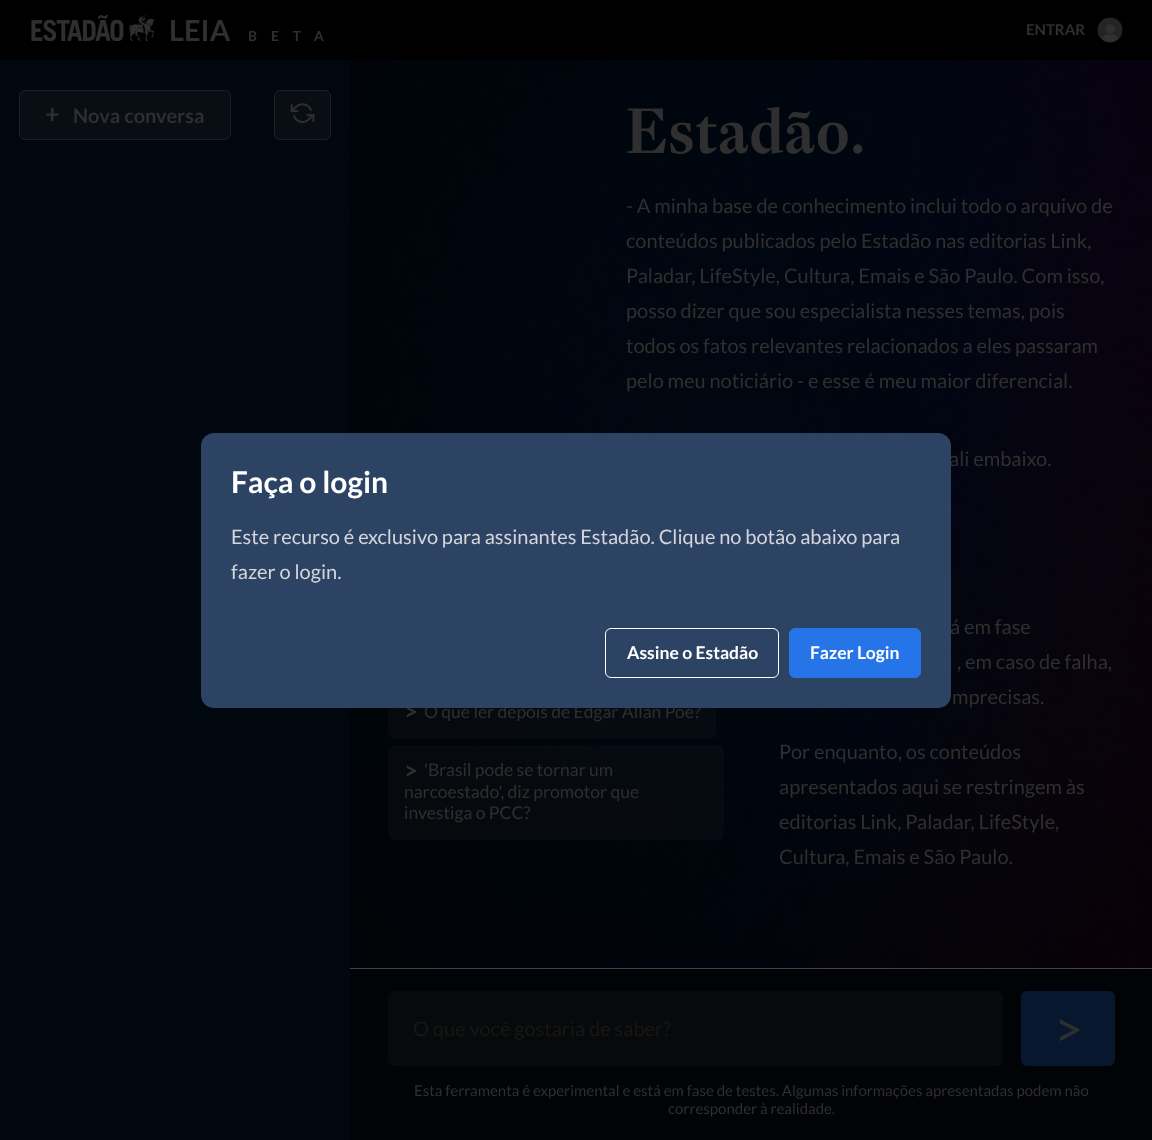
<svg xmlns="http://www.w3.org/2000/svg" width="1152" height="1140">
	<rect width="100%" height="100%" fill="#FFFFFF" />
	<rect x="0" y="0" width="1152" height="60" fill="#000000" />
	<image x="31" y="15" width="123" height="26" href="assets/img1.png" />
	<text x="169" y="41" font-family="Lato" font-size="29" font-weight="700" fill="#2F2F2F">LEIA</text>
	<text x="248" y="41" font-family="Lato" font-size="13.75" font-weight="700" letter-spacing="14" fill="#2F2F2F">BETA</text>
	<text x="1026" y="35" font-family="Lato" font-size="15" font-weight="700" fill="#2F2F2F">ENTRAR</text>
	<image x="1097" y="17" width="26" height="26" href="assets/img2.png" />
	<rect x="0" y="60" width="350" height="1080" fill="#01070E" />
	<rect x="19" y="90" width="212" height="50" rx="6" fill="#090D14" />
	<rect x="19.5" y="90.5" width="211" height="49" rx="5.5" fill="none" stroke="#333333" stroke-opacity="0.5" />
	<text x="45" y="123" font-family="Lato" font-size="25" font-weight="700" fill="#2F2F2F">+</text>
	<text x="73" y="123" font-family="Lato" font-size="20" font-weight="700" fill="#2F2F2F">Nova conversa</text>
	<rect x="274" y="90" width="57" height="50" rx="6" fill="#090D14" />
	<rect x="274.5" y="90.5" width="56" height="49" rx="5.5" fill="none" stroke="#333333" stroke-opacity="0.5" />
	<image x="290" y="103" width="25" height="20" href="assets/img3.png" />
	<image x="350" y="60" width="802" height="909" href="assets/img4.png" />
	<text x="626" y="153" font-family="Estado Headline" font-size="62.5" font-weight="600" fill="#2F2F2F">Estadão.</text>
	<g font-family="Lato" font-size="20" fill="#2F2F2F">
		<text x="626" y="213">- A minha base de conhecimento inclui todo o arquivo de</text>
		<text x="626" y="248">conteúdos publicados pelo Estadão nas editorias Link,</text>
		<text x="626" y="283">Paladar, LifeStyle, Cultura, Emais e São Paulo. Com isso,</text>
		<text x="626" y="318">posso dizer que sou especialista nesses temas, pois</text>
		<text x="626" y="353">todos os fatos relevantes relacionados a eles passaram</text>
		<text x="626" y="388">pelo meu noticiário - e esse é meu maior diferencial.</text>
		<text x="949" y="466">ali embaixo.</text>
	</g>
	<rect x="388" y="686" width="328" height="53" rx="6" fill="#2B2B2B" fill-opacity="0.15" />
	<text x="404" y="720" font-family="Lato" font-size="24" font-weight="700" fill="#2F2F2F">&gt;</text>
	<text x="424" y="718" font-family="Lato" font-size="17.5" fill="#2F2F2F">O que ler depois de Edgar Allan Poe?</text>
	<rect x="388" y="745" width="336" height="95" rx="6" fill="#2B2B2B" fill-opacity="0.15" />
	<text x="404" y="779" font-family="Lato" font-size="24" font-weight="700" fill="#2F2F2F">&gt;</text>
	<g font-family="Lato" font-size="17.5" fill="#2F2F2F">
		<text x="424" y="776">'Brasil pode se tornar um</text>
		<text x="404" y="798">narcoestado', diz promotor que</text>
		<text x="404" y="819">investiga o PCC?</text>
	</g>
	<g font-family="Lato" font-size="20" fill="#2F2F2F">
		<text x="950" y="634">á em fase</text>
		<text x="957" y="669">, em caso de falha,</text>
		<text x="952" y="704">mprecisas.</text>
		<text x="779" y="759">Por enquanto, os conteúdos</text>
		<text x="779" y="794">apresentados aqui se restringem às</text>
		<text x="779" y="829">editorias Link, Paladar, LifeStyle,</text>
		<text x="779" y="864">Cultura, Emais e São Paulo.</text>
	</g>
	<rect x="201" y="433" width="750" height="275" rx="13" fill="#2C4363" />
	<text x="231" y="493" font-family="Lato" font-size="30" font-weight="700" fill="#FFFFFF">Faça o login</text>
	<g font-family="Lato" font-size="20" fill="#D5D5DB">
		<text x="231" y="544">Este recurso é exclusivo para assinantes Estadão. Clique no botão abaixo para</text>
		<text x="231" y="579">fazer o login.</text>
	</g>
	<rect x="605.5" y="628.5" width="173" height="49" rx="5.5" fill="none" stroke="#FFFFFF" />
	<text x="627" y="659" font-family="Lato" font-size="17.5" font-weight="700" fill="#FFFFFF">Assine o Estadão</text>
	<rect x="789.5" y="628.5" width="131" height="49" rx="5.5" fill="#2575E8" stroke="#2575E8" />
	<text x="810" y="659" font-family="Lato" font-size="17.5" font-weight="700" fill="#FFFFFF">Fazer Login</text>
	<rect x="350" y="969" width="802" height="171" fill="#010306" />
	<rect x="388" y="991" width="615" height="75" rx="6" fill="#07090B" />
	<text x="413" y="1036" font-family="Lato" font-size="20" fill="#171717">O que você gostaria de saber?</text>
	<rect x="1021" y="991" width="94" height="75" rx="6" fill="#07172E" />
	<text x="1054" y="1047" font-family="Lato" font-size="50" fill="#2F2F2F">&gt;</text>
	<g font-family="Lato" font-size="15" fill="#2F2F2F">
		<text x="414" y="1096">Esta ferramenta é experimental e está em fase de testes. Algumas informações apresentadas podem não</text>
		<text x="668" y="1114">corresponder à realidade.</text>
	</g>
</svg>
